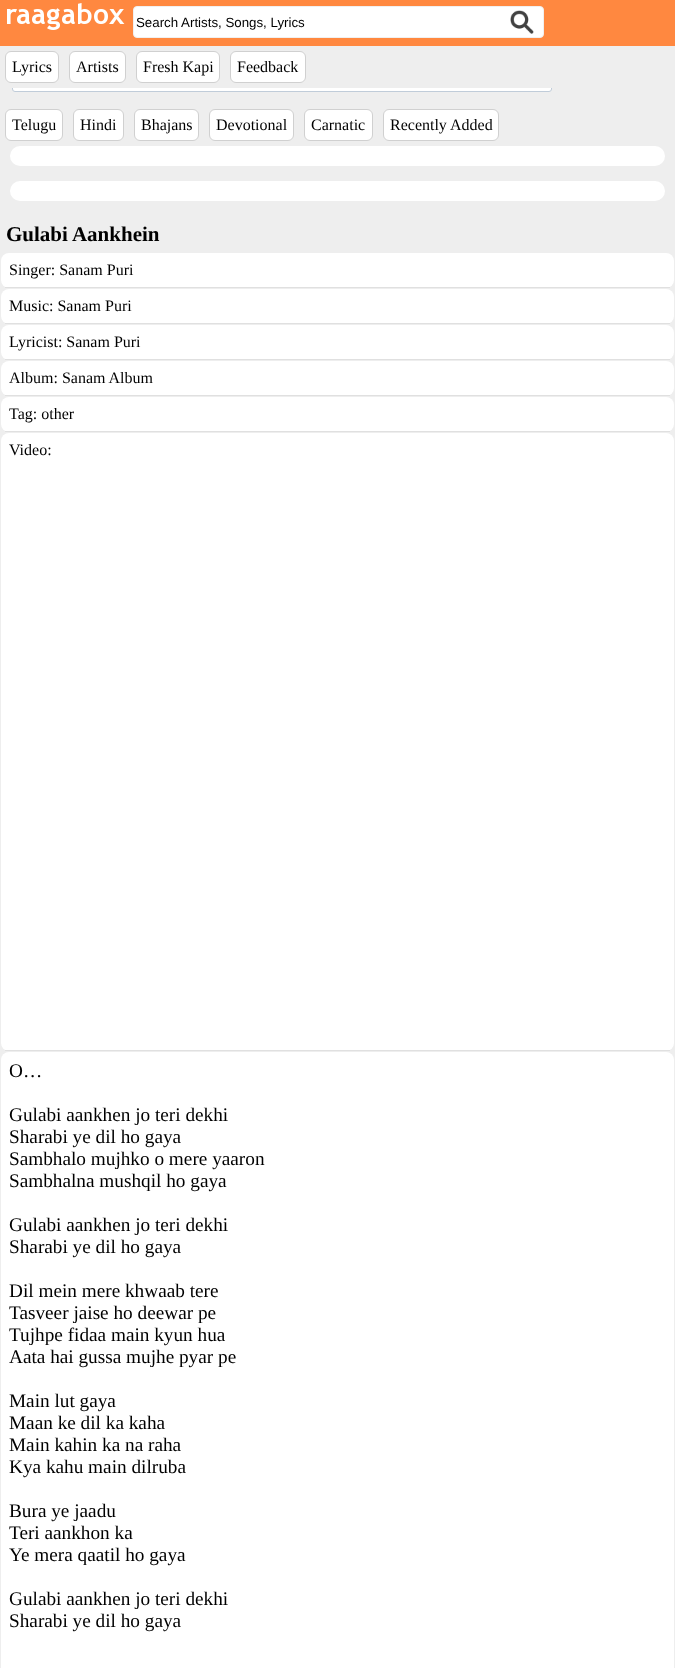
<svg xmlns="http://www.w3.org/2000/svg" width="675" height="1668">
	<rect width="100%" height="100%" fill="#EEEEEE" />
	<rect x="12.5" y="-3.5" width="539" height="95" rx="2.5" fill="#FFFFFF" stroke="#C0CCD9" />
	<rect x="0" y="0" width="675" height="46" fill="#FF8840" />
	<image x="7" y="3" width="118" height="27" href="assets/img1.png" />
	<rect x="133.5" y="6.5" width="410" height="31" rx="3.5" fill="#FFFFFF" stroke="#F0F0F0" />
	<text x="136" y="27" font-family="Liberation Sans" font-size="13.3" fill="#000000">Search Artists, Songs, Lyrics</text>
	<image x="510" y="10" width="24" height="24" href="assets/img2.png" />
	<rect x="12" y="46" width="540" height="42" fill="#EEEEEE" />
	<rect x="5.5" y="51.5" width="53" height="31" rx="5.5" fill="#FFFFFF" stroke="#D0D0D0" />
	<text x="12" y="72" font-family="Liberation Serif" font-size="16" fill="#000000">Lyrics</text>
	<rect x="69.5" y="51.5" width="56" height="31" rx="5.5" fill="#FFFFFF" stroke="#D0D0D0" />
	<text x="76" y="72" font-family="Liberation Serif" font-size="16" fill="#000000">Artists</text>
	<rect x="136.5" y="51.5" width="83" height="31" rx="5.5" fill="#FFFFFF" stroke="#D0D0D0" />
	<text x="143" y="72" font-family="Liberation Serif" font-size="16" fill="#000000">Fresh Kapi</text>
	<rect x="230.5" y="51.5" width="75" height="31" rx="5.5" fill="#FFFFFF" stroke="#D0D0D0" />
	<text x="237" y="72" font-family="Liberation Serif" font-size="16" fill="#000000">Feedback</text>
	<rect x="5.5" y="109.5" width="57" height="31" rx="5.5" fill="#FFFFFF" stroke="#D0D0D0" />
	<text x="12" y="130" font-family="Liberation Serif" font-size="16" fill="#000000">Telugu</text>
	<rect x="73.5" y="109.5" width="50" height="31" rx="5.5" fill="#FFFFFF" stroke="#D0D0D0" />
	<text x="80" y="130" font-family="Liberation Serif" font-size="16" fill="#000000">Hindi</text>
	<rect x="134.5" y="109.5" width="64" height="31" rx="5.5" fill="#FFFFFF" stroke="#D0D0D0" />
	<text x="141" y="130" font-family="Liberation Serif" font-size="16" fill="#000000">Bhajans</text>
	<rect x="209.5" y="109.5" width="84" height="31" rx="5.5" fill="#FFFFFF" stroke="#D0D0D0" />
	<text x="216" y="130" font-family="Liberation Serif" font-size="16" fill="#000000">Devotional</text>
	<rect x="304.5" y="109.5" width="68" height="31" rx="5.5" fill="#FFFFFF" stroke="#D0D0D0" />
	<text x="311" y="130" font-family="Liberation Serif" font-size="16" fill="#000000">Carnatic</text>
	<rect x="383.5" y="109.5" width="115" height="31" rx="5.5" fill="#FFFFFF" stroke="#D0D0D0" />
	<text x="390" y="130" font-family="Liberation Serif" font-size="16" fill="#000000">Recently Added</text>
	<rect x="10" y="146" width="655" height="20" rx="10" fill="#FFFFFF" />
	<rect x="10" y="181" width="655" height="20" rx="10" fill="#FFFFFF" />
	<text x="6" y="241" font-family="Liberation Serif" font-size="21" font-weight="700" fill="#000000">Gulabi Aankhein</text>
	<rect x="1" y="253" width="673" height="35" rx="8" fill="#FFFFFF" />
	<rect x="5" y="287" width="665" height="1" fill="#E0E0E0" />
	<text x="9" y="275" font-family="Liberation Serif" font-size="16" fill="#000000">Singer: Sanam Puri</text>
	<rect x="1" y="289" width="673" height="35" rx="8" fill="#FFFFFF" />
	<rect x="5" y="323" width="665" height="1" fill="#E0E0E0" />
	<text x="9" y="311" font-family="Liberation Serif" font-size="16" fill="#000000">Music: Sanam Puri</text>
	<rect x="1" y="325" width="673" height="35" rx="8" fill="#FFFFFF" />
	<rect x="5" y="359" width="665" height="1" fill="#E0E0E0" />
	<text x="9" y="347" font-family="Liberation Serif" font-size="16" fill="#000000">Lyricist: Sanam Puri</text>
	<rect x="1" y="361" width="673" height="35" rx="8" fill="#FFFFFF" />
	<rect x="5" y="395" width="665" height="1" fill="#E0E0E0" />
	<text x="9" y="383" font-family="Liberation Serif" font-size="16" fill="#000000">Album: Sanam Album</text>
	<rect x="1" y="397" width="673" height="35" rx="8" fill="#FFFFFF" />
	<rect x="5" y="431" width="665" height="1" fill="#E0E0E0" />
	<text x="9" y="419" font-family="Liberation Serif" font-size="16" fill="#000000">Tag: other</text>
	<rect x="1" y="433" width="673" height="618" rx="8" fill="#FFFFFF" />
	<rect x="5" y="1050" width="665" height="1" fill="#E0E0E0" />
	<text x="9" y="455" font-family="Liberation Serif" font-size="16" fill="#000000">Video:</text>
	<rect x="1" y="1052" width="673" height="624" rx="8" fill="#FFFFFF" />
	<g font-family="Liberation Serif" font-size="19.25" fill="#000000">
		<text x="9" y="1077">O…</text>
		<text x="9" y="1121">Gulabi aankhen jo teri dekhi</text>
		<text x="9" y="1143">Sharabi ye dil ho gaya</text>
		<text x="9" y="1165">Sambhalo mujhko o mere yaaron</text>
		<text x="9" y="1187">Sambhalna mushqil ho gaya</text>
		<text x="9" y="1231">Gulabi aankhen jo teri dekhi</text>
		<text x="9" y="1253">Sharabi ye dil ho gaya</text>
		<text x="9" y="1297">Dil mein mere khwaab tere</text>
		<text x="9" y="1319">Tasveer jaise ho deewar pe</text>
		<text x="9" y="1341">Tujhpe fidaa main kyun hua</text>
		<text x="9" y="1363">Aata hai gussa mujhe pyar pe</text>
		<text x="9" y="1407">Main lut gaya</text>
		<text x="9" y="1429">Maan ke dil ka kaha</text>
		<text x="9" y="1451">Main kahin ka na raha</text>
		<text x="9" y="1473">Kya kahu main dilruba</text>
		<text x="9" y="1517">Bura ye jaadu</text>
		<text x="9" y="1539">Teri aankhon ka</text>
		<text x="9" y="1561">Ye mera qaatil ho gaya</text>
		<text x="9" y="1605">Gulabi aankhen jo teri dekhi</text>
		<text x="9" y="1627">Sharabi ye dil ho gaya</text>
	</g>
</svg>
